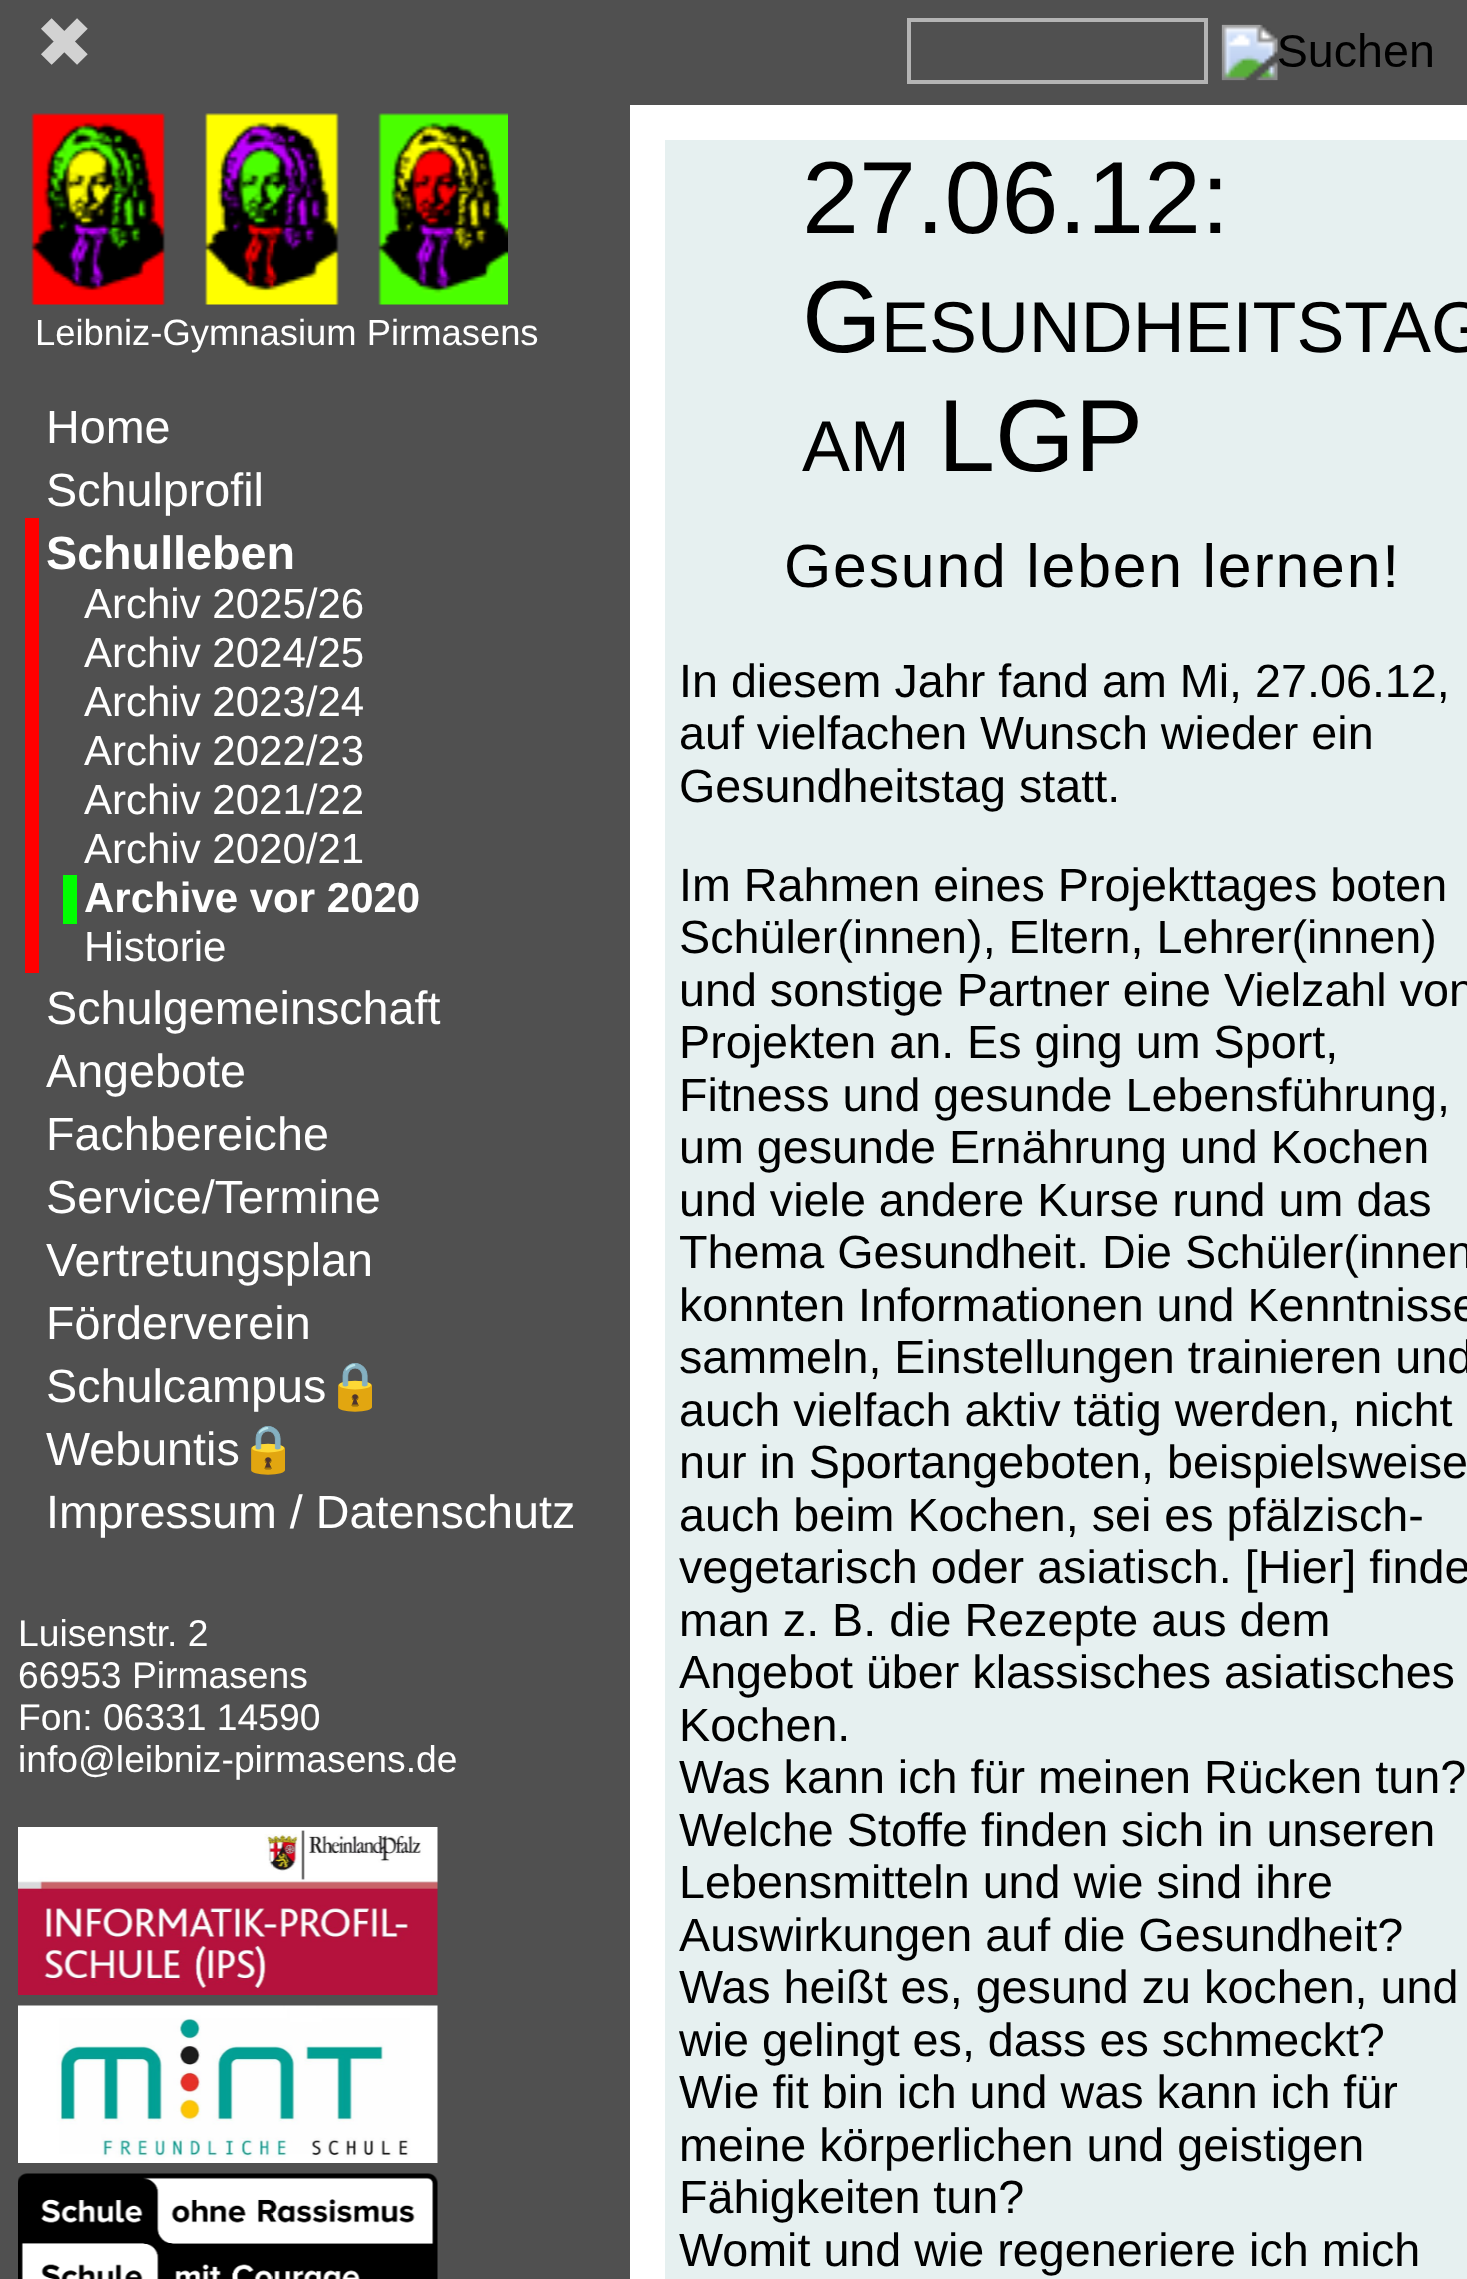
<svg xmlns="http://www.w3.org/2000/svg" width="1467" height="2279">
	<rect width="100%" height="100%" fill="#FFFFFF" />
	<rect x="0" y="0" width="1467" height="105" fill="#505050" />
	<text x="35" y="67" font-family="DejaVu Sans" font-size="70" fill="#D2D2D2">✖</text>
	<rect x="909" y="20" width="297" height="62" fill="none" stroke="#B4B4B4" stroke-width="4" />
	<image x="1221" y="24" width="211" height="57" href="assets/img1.png" />
	<rect x="0" y="105" width="630" height="2174" fill="#505050" />
	<image x="31" y="113" width="477" height="192" href="assets/img2.png" />
	<text x="35" y="345" font-family="Liberation Sans" font-size="36.4" fill="#FFFFFF">Leibniz-Gymnasium Pirmasens</text>
	<g font-family="Liberation Sans" font-size="46.7" fill="#FFFFFF">
		<text x="46" y="443">Home</text>
		<text x="46" y="506">Schulprofil</text>
	</g>
	<rect x="25" y="518" width="14" height="455" fill="#FF0000" />
	<text x="46" y="569" font-family="Liberation Sans" font-size="46.7" font-weight="700" fill="#FFFFFF">Schulleben</text>
	<g font-family="Liberation Sans" font-size="42" fill="#FFFFFF">
		<text x="84" y="618">Archiv 2025/26</text>
		<text x="84" y="667">Archiv 2024/25</text>
		<text x="84" y="716">Archiv 2023/24</text>
		<text x="84" y="765">Archiv 2022/23</text>
		<text x="84" y="814">Archiv 2021/22</text>
		<text x="84" y="863">Archiv 2020/21</text>
	</g>
	<rect x="63" y="875" width="14" height="49" fill="#00FF00" />
	<text x="84" y="912" font-family="Liberation Sans" font-size="42" font-weight="700" fill="#FFFFFF">Archive vor 2020</text>
	<text x="84" y="961" font-family="Liberation Sans" font-size="42" fill="#FFFFFF">Historie</text>
	<g font-family="Liberation Sans" font-size="46.7" fill="#FFFFFF">
		<text x="46" y="1024">Schulgemeinschaft</text>
		<text x="46" y="1087">Angebote</text>
		<text x="46" y="1150">Fachbereiche</text>
		<text x="46" y="1213">Service/Termine</text>
		<text x="46" y="1276">Vertretungsplan</text>
		<text x="46" y="1339">Förderverein</text>
		<text x="46" y="1402">Schulcampus</text>
	</g>
	<text x="326" y="1402" font-family="Noto Color Emoji" font-size="46.7" fill="#FFFFFF">🔒</text>
	<text x="46" y="1465" font-family="Liberation Sans" font-size="46.7" fill="#FFFFFF">Webuntis</text>
	<text x="239" y="1465" font-family="Noto Color Emoji" font-size="46.7" fill="#FFFFFF">🔒</text>
	<text x="46" y="1528" font-family="Liberation Sans" font-size="46.7" fill="#FFFFFF">Impressum / Datenschutz</text>
	<g font-family="Liberation Sans" font-size="37.25" fill="#FFFFFF">
		<text x="18" y="1646">Luisenstr. 2</text>
		<text x="18" y="1688">66953 Pirmasens</text>
		<text x="18" y="1730">Fon: 06331 14590</text>
		<text x="18" y="1772">info@leibniz-pirmasens.de</text>
	</g>
	<image x="18" y="1827" width="420" height="168" href="assets/img3.png" />
	<image x="18" y="2005" width="420" height="158" href="assets/img4.png" />
	<image x="18" y="2173" width="420" height="106" href="assets/img5.png" />
	<rect x="665" y="140" width="802" height="2139" fill="#E6F0F0" />
	<g font-family="Liberation Sans" font-size="102.5" fill="#000000">
		<text x="802" y="233">27.06.12:</text>
		<text x="802" y="352">G</text>
	</g>
	<g font-family="Liberation Sans" font-size="71.9" fill="#000000">
		<text x="881" y="352">ESUNDHEITSTAG</text>
		<text x="802" y="471">AM</text>
	</g>
	<text x="938" y="471" font-family="Liberation Sans" font-size="102.5" fill="#000000">LGP</text>
	<text x="784" y="587" font-family="Liberation Sans" font-size="60.75" letter-spacing="1.8" fill="#000000">Gesund leben lernen!</text>
	<g font-family="Liberation Sans" font-size="46.7" fill="#000000">
		<text x="679" y="697">In diesem Jahr fand am Mi, 27.06.12,</text>
		<text x="679" y="749">auf vielfachen Wunsch wieder ein</text>
		<text x="679" y="802">Gesundheitstag statt.</text>
		<text x="679" y="901">Im Rahmen eines Projekttages boten</text>
		<text x="679" y="953">Schüler(innen), Eltern, Lehrer(innen)</text>
		<text x="679" y="1006">und sonstige Partner eine Vielzahl von</text>
		<text x="679" y="1058">Projekten an. Es ging um Sport,</text>
		<text x="679" y="1111">Fitness und gesunde Lebensführung,</text>
		<text x="679" y="1163">um gesunde Ernährung und Kochen</text>
		<text x="679" y="1216">und viele andere Kurse rund um das</text>
		<text x="679" y="1268">Thema Gesundheit. Die Schüler(innen</text>
		<text x="679" y="1321">konnten Informationen und Kenntnisse</text>
		<text x="679" y="1373">sammeln, Einstellungen trainieren und</text>
		<text x="679" y="1426">auch vielfach aktiv tätig werden, nicht</text>
		<text x="679" y="1478">nur in Sportangeboten, beispielsweise</text>
		<text x="679" y="1531">auch beim Kochen, sei es pfälzisch-</text>
		<text x="679" y="1583">vegetarisch oder asiatisch. [Hier] finde</text>
		<text x="679" y="1636">man z. B. die Rezepte aus dem</text>
		<text x="679" y="1688">Angebot über klassisches asiatisches</text>
		<text x="679" y="1741">Kochen.</text>
		<text x="679" y="1793">Was kann ich für meinen Rücken tun?</text>
		<text x="679" y="1846">Welche Stoffe finden sich in unseren</text>
		<text x="679" y="1898">Lebensmitteln und wie sind ihre</text>
		<text x="679" y="1951">Auswirkungen auf die Gesundheit?</text>
		<text x="679" y="2003">Was heißt es, gesund zu kochen, und</text>
		<text x="679" y="2056">wie gelingt es, dass es schmeckt?</text>
		<text x="679" y="2108">Wie fit bin ich und was kann ich für</text>
		<text x="679" y="2161">meine körperlichen und geistigen</text>
		<text x="679" y="2213">Fähigkeiten tun?</text>
		<text x="679" y="2266">Womit und wie regeneriere ich mich</text>
	</g>
</svg>
